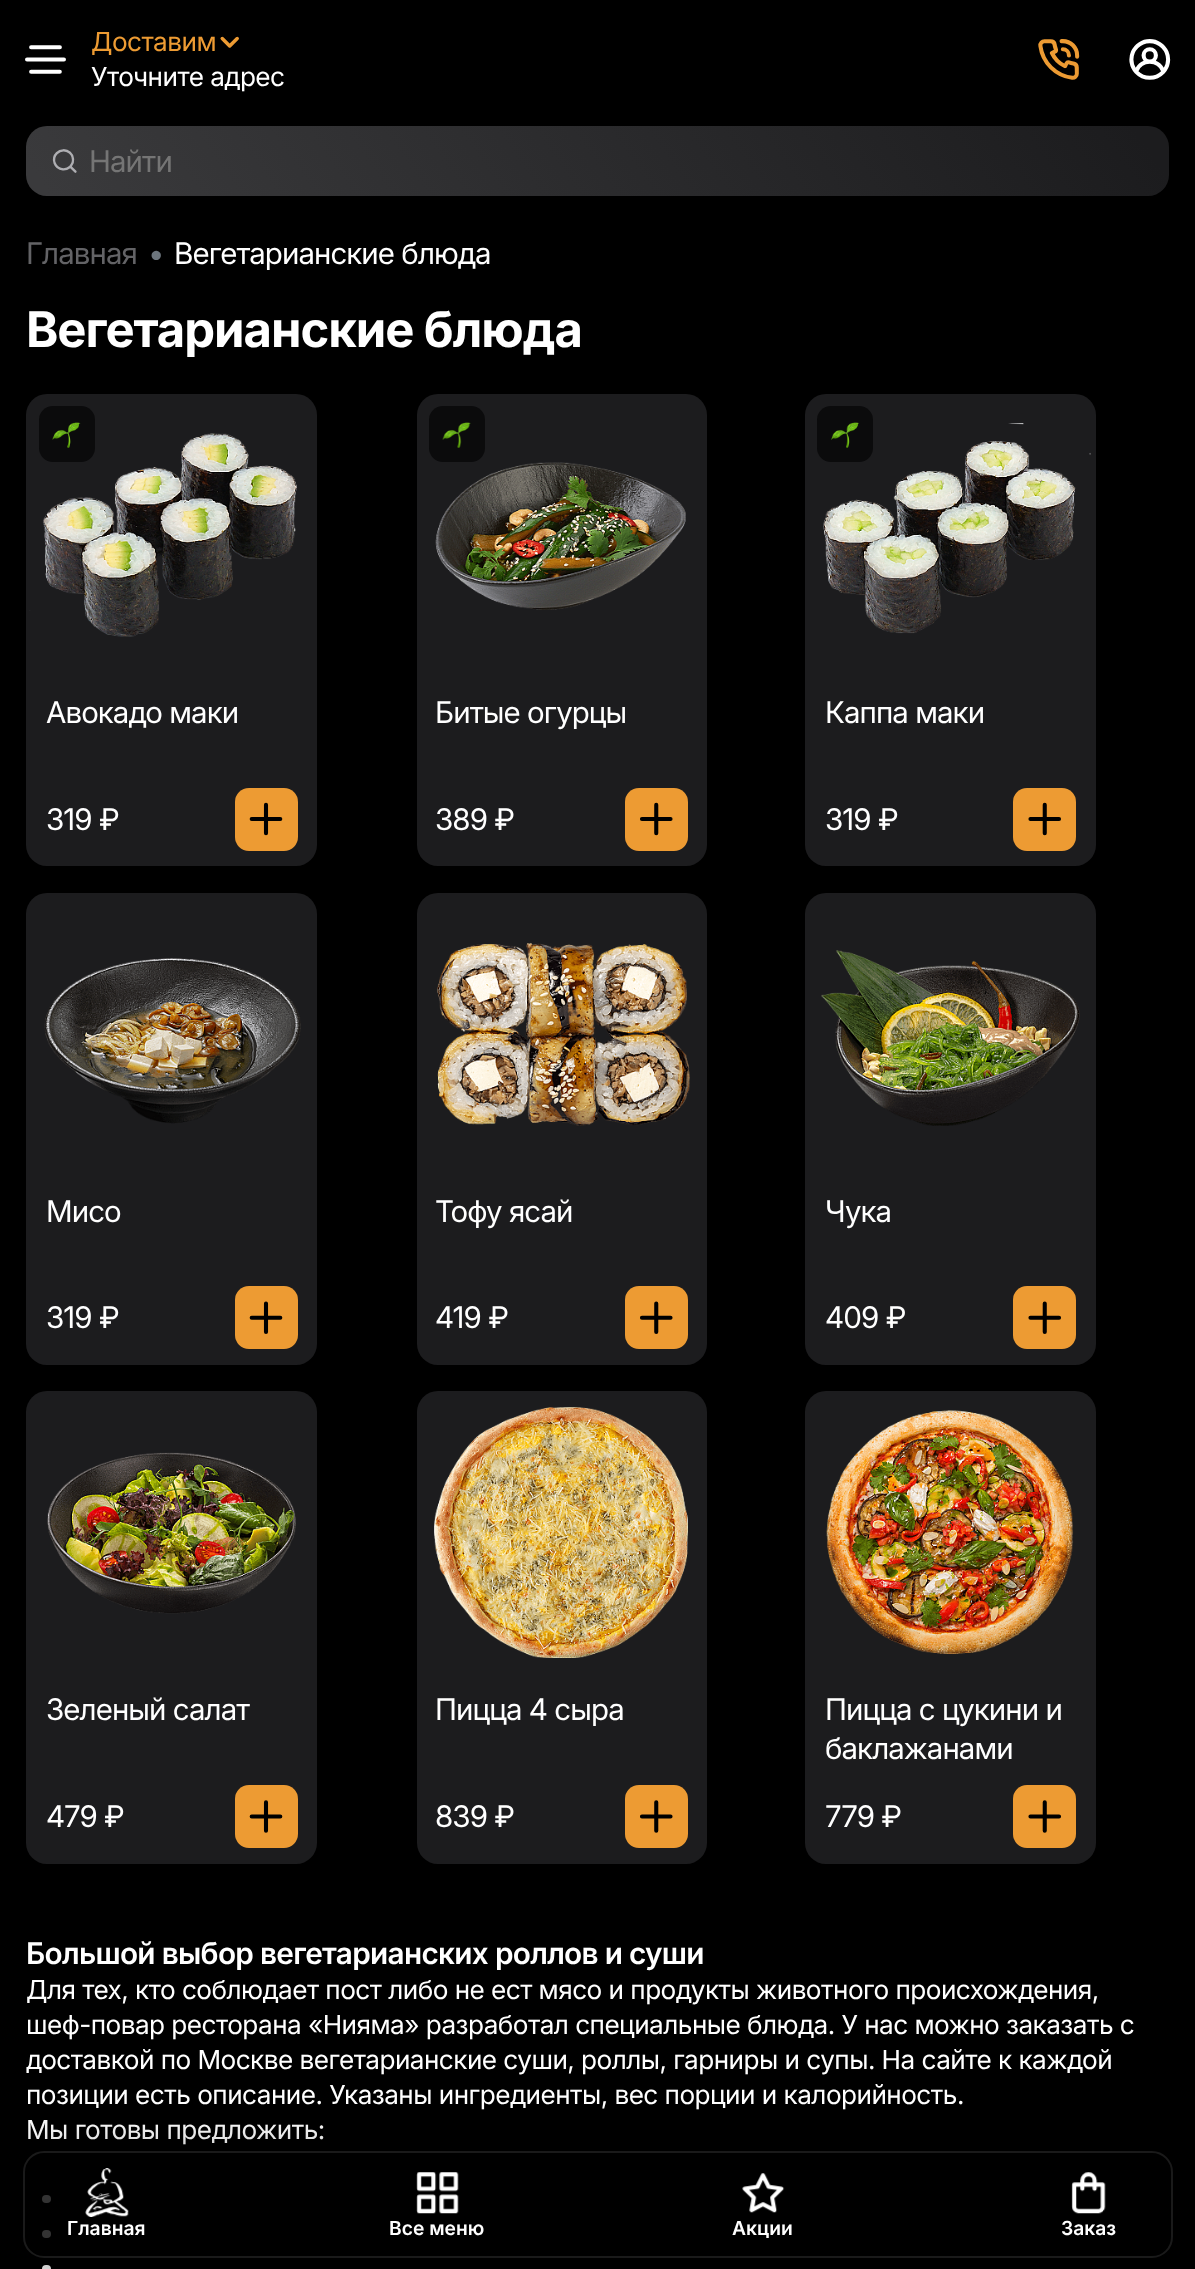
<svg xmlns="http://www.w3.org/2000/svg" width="1195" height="2269">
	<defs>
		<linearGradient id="g1" gradientUnits="userSpaceOnUse" x1="999" y1="-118" x2="196" y2="440"><stop offset="0.03" stop-color="#1C1C1E" /><stop offset="0.98" stop-color="#3A3A3C" /></linearGradient>
		<clipPath id="clip1"><path d="M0 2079H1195V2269H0ZM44 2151H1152C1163.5 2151 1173 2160.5 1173 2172V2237C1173 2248.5 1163.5 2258 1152 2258H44C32.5 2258 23 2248.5 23 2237V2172C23 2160.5 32.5 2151 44 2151Z" clip-rule="evenodd" /></clipPath>
	</defs>
	<rect width="100%" height="100%" fill="#000000" />
	<image x="25" y="45" width="41" height="29" href="assets/img1.png" />
	<text x="91" y="51" font-family="'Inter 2'" font-size="26.25" letter-spacing="-0.53" fill="#ED9B33">Доставим</text>
	<image x="220" y="36" width="19" height="12" href="assets/img2.png" />
	<text x="91" y="86" font-family="'Inter 2'" font-size="26.25" letter-spacing="-0.53" fill="#FFFFFF">Уточните адрес</text>
	<image x="1038" y="39" width="42" height="41" href="assets/img3.png" />
	<image x="1129" y="39" width="42" height="41" href="assets/img4.png" />
	<rect x="26" y="126" width="1143" height="70" rx="21" fill="url(#g1)" />
	<image x="52" y="149" width="25" height="24" href="assets/img5.png" />
	<text x="89" y="172" font-family="Inter" font-size="29.75" letter-spacing="-0.9" fill="#757575">Найти</text>
	<text x="26" y="264" font-family="Inter" font-size="29.75" letter-spacing="-0.9" fill="#636366">Главная</text>
	<text x="148" y="264" font-family="Inter" font-size="29.75" letter-spacing="-0.9" fill="#6C757D">•</text>
	<text x="174" y="264" font-family="Inter" font-size="29.75" letter-spacing="-0.9" fill="#FFFFFF">Вегетарианские блюда</text>
	<text x="26" y="347" font-family="Inter" font-size="49" font-weight="700" letter-spacing="-1.05" fill="#FFFFFF">Вегетарианские блюда</text>
	<rect x="26" y="394" width="291" height="472" rx="21" fill="#1C1C1E" />
	<image x="29" y="433" width="268" height="204" href="assets/img7.png" />
	<rect x="39" y="406" width="56" height="56" rx="14" fill="#0B0B0C" />
	<image x="52" y="422" width="29" height="26" href="assets/img6.png" />
	<g font-family="Inter" font-size="29.75" letter-spacing="-0.9" fill="#FFFFFF">
		<text x="46" y="723">Авокадо маки</text>
		<text x="46" y="830">319 ₽</text>
	</g>
	<rect x="235" y="788" width="63" height="63" rx="14" fill="#ED9B33" />
	<image x="249" y="802" width="34" height="34" href="assets/img8.png" />
	<rect x="417" y="394" width="290" height="472" rx="21" fill="#1C1C1E" />
	<rect x="429" y="406" width="56" height="56" rx="14" fill="#0B0B0C" />
	<image x="442" y="422" width="29" height="26" href="assets/img9.png" />
	<image x="435" y="462" width="251" height="148" href="assets/img10.png" />
	<g font-family="Inter" font-size="29.75" letter-spacing="-0.9" fill="#FFFFFF">
		<text x="435" y="723">Битые огурцы</text>
		<text x="435" y="830">389 ₽</text>
	</g>
	<rect x="625" y="788" width="63" height="63" rx="14" fill="#ED9B33" />
	<image x="640" y="802" width="33" height="34" href="assets/img11.png" />
	<rect x="805" y="394" width="291" height="472" rx="21" fill="#1C1C1E" />
	<image x="823" y="423" width="268" height="211" href="assets/img13.png" />
	<rect x="817" y="406" width="56" height="56" rx="14" fill="#0B0B0C" />
	<image x="831" y="422" width="28" height="26" href="assets/img12.png" />
	<g font-family="Inter" font-size="29.75" letter-spacing="-0.9" fill="#FFFFFF">
		<text x="825" y="723">Каппа маки</text>
		<text x="825" y="830">319 ₽</text>
	</g>
	<rect x="1013" y="788" width="63" height="63" rx="14" fill="#ED9B33" />
	<image x="1028" y="802" width="33" height="34" href="assets/img14.png" />
	<rect x="26" y="893" width="291" height="472" rx="21" fill="#1C1C1E" />
	<image x="44" y="958" width="257" height="166" href="assets/img15.png" />
	<g font-family="Inter" font-size="29.75" letter-spacing="-0.9" fill="#FFFFFF">
		<text x="46" y="1222">Мисо</text>
		<text x="46" y="1328">319 ₽</text>
	</g>
	<rect x="235" y="1286" width="63" height="63" rx="14" fill="#ED9B33" />
	<image x="249" y="1301" width="34" height="33" href="assets/img16.png" />
	<rect x="417" y="893" width="290" height="472" rx="21" fill="#1C1C1E" />
	<image x="437" y="942" width="253" height="184" href="assets/img17.png" />
	<g font-family="Inter" font-size="29.75" letter-spacing="-0.9" fill="#FFFFFF">
		<text x="435" y="1222">Тофу ясай</text>
		<text x="435" y="1328">419 ₽</text>
	</g>
	<rect x="625" y="1286" width="63" height="63" rx="14" fill="#ED9B33" />
	<image x="640" y="1301" width="33" height="33" href="assets/img18.png" />
	<rect x="805" y="893" width="291" height="472" rx="21" fill="#1C1C1E" />
	<image x="821" y="950" width="259" height="176" href="assets/img19.png" />
	<g font-family="Inter" font-size="29.75" letter-spacing="-0.9" fill="#FFFFFF">
		<text x="825" y="1222">Чука</text>
		<text x="825" y="1328">409 ₽</text>
	</g>
	<rect x="1013" y="1286" width="63" height="63" rx="14" fill="#ED9B33" />
	<image x="1028" y="1301" width="33" height="33" href="assets/img20.png" />
	<rect x="26" y="1391" width="291" height="473" rx="21" fill="#1C1C1E" />
	<image x="47" y="1452" width="249" height="162" href="assets/img21.png" />
	<g font-family="Inter" font-size="29.75" letter-spacing="-0.9" fill="#FFFFFF">
		<text x="46" y="1720">Зеленый салат</text>
		<text x="46" y="1827">479 ₽</text>
	</g>
	<rect x="235" y="1785" width="63" height="63" rx="14" fill="#ED9B33" />
	<image x="249" y="1800" width="34" height="33" href="assets/img22.png" />
	<rect x="417" y="1391" width="290" height="473" rx="21" fill="#1C1C1E" />
	<image x="434" y="1407" width="254" height="251" href="assets/img23.png" />
	<g font-family="Inter" font-size="29.75" letter-spacing="-0.9" fill="#FFFFFF">
		<text x="435" y="1720">Пицца 4 сыра</text>
		<text x="435" y="1827">839 ₽</text>
	</g>
	<rect x="625" y="1785" width="63" height="63" rx="14" fill="#ED9B33" />
	<image x="640" y="1800" width="33" height="33" href="assets/img24.png" />
	<rect x="805" y="1391" width="291" height="473" rx="21" fill="#1C1C1E" />
	<image x="826" y="1410" width="248" height="244" href="assets/img25.png" />
	<g font-family="Inter" font-size="29.75" letter-spacing="-0.9" fill="#FFFFFF">
		<text x="825" y="1720">Пицца с цукини и</text>
		<text x="825" y="1759">баклажанами</text>
		<text x="825" y="1827">779 ₽</text>
	</g>
	<rect x="1013" y="1785" width="63" height="63" rx="14" fill="#ED9B33" />
	<image x="1028" y="1800" width="33" height="33" href="assets/img26.png" />
	<text x="26" y="1964" font-family="Inter" font-size="29.75" font-weight="600" letter-spacing="-0.7" fill="#FFFFFF">Большой выбор вегетарианских роллов и суши</text>
	<g font-family="'Inter 2'" font-size="26.25" letter-spacing="-0.53" fill="#FFFFFF">
		<text x="26" y="1999">Для тех, кто соблюдает пост либо не ест мясо и продукты животного происхождения,</text>
		<text x="26" y="2034">шеф-повар ресторана «Нияма» разработал специальные блюда. У нас можно заказать с</text>
		<text x="26" y="2069">доставкой по Москве вегетарианские суши, роллы, гарниры и супы. На сайте к каждой</text>
		<text x="26" y="2104">позиции есть описание. Указаны ингредиенты, вес порции и калорийность.</text>
		<text x="26" y="2139">Мы готовы предложить:</text>
	</g>
	<rect x="42" y="2195" width="9" height="8" rx="4" fill="#FFFFFF" />
	<rect x="42" y="2230" width="9" height="8" rx="4" fill="#FFFFFF" />
	<rect x="42" y="2265" width="9" height="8" rx="4" fill="#FFFFFF" />
	<g clip-path="url(#clip1)">
		<rect x="23" y="2158" width="1150" height="107" rx="21" fill="#000000" fill-opacity="0.5" filter="blur(26px)" />
	</g>
	<rect x="24" y="2152" width="1148" height="105" rx="20" fill="#000000" fill-opacity="0.8" stroke="#1A1A1A" stroke-width="2" />
	<image x="85" y="2168" width="44" height="49" href="assets/img27.png" />
	<text x="67" y="2235" font-family="Inter" font-size="19.25" font-weight="600" fill="#FFFFFF">Главная</text>
	<image x="416" y="2172" width="43" height="42" href="assets/img28.png" />
	<text x="389" y="2235" font-family="Inter" font-size="19.25" font-weight="600" fill="#FFFFFF">Все меню</text>
	<image x="742" y="2173" width="43" height="40" href="assets/img29.png" />
	<text x="732" y="2235" font-family="Inter" font-size="19.25" font-weight="600" fill="#FFFFFF">Акции</text>
	<image x="1071" y="2172" width="35" height="42" href="assets/img30.png" />
	<text x="1061" y="2235" font-family="Inter" font-size="19.25" font-weight="600" fill="#FFFFFF">Заказ</text>
</svg>
